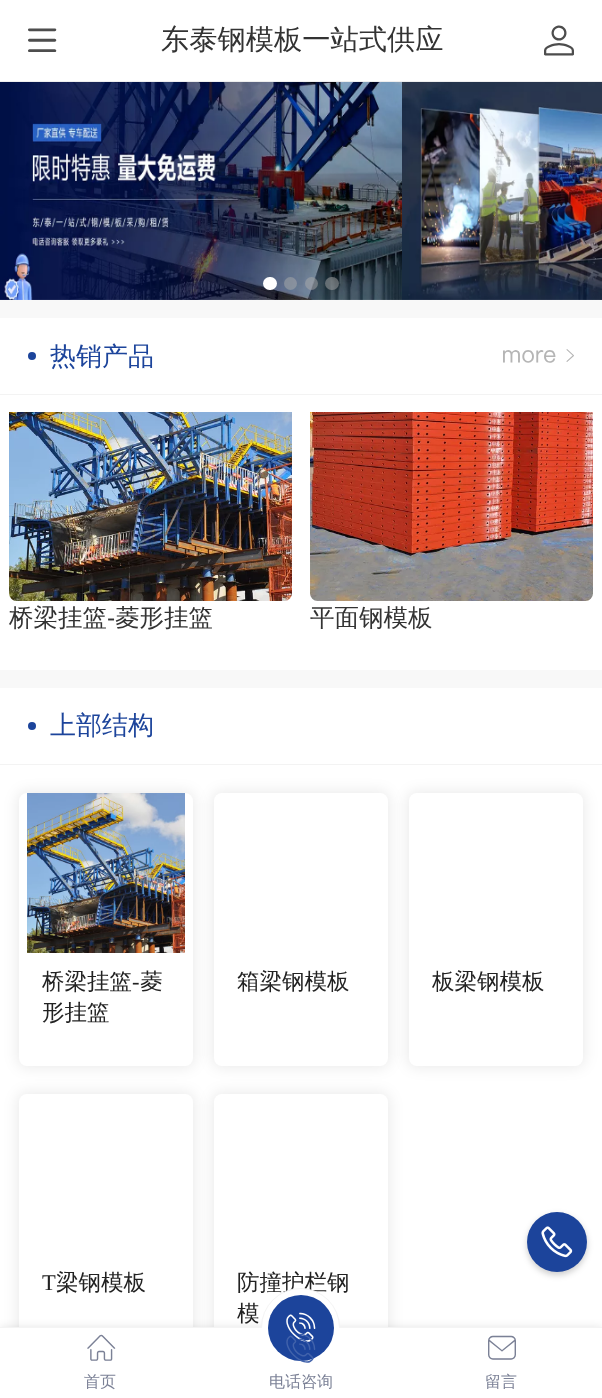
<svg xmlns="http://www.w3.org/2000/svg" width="602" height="1398">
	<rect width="100%" height="100%" fill="#F8F8F8" />
	<rect x="0" y="0" width="602" height="81" fill="#FFFFFF" />
	<text x="28" y="52" font-family="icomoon" font-size="28.25" fill="#4D4D4D">򰌲</text>
	<rect x="0" y="81" width="602" height="1" fill="#EEEEEE" />
	<text x="161" y="49" font-family="WenQuanYi Zen Hei" font-size="28.25" font-weight="500" fill="#333333">东泰钢模板一站式供应</text>
	<text x="544" y="53" font-family="icomoon" font-size="30" fill="#4D4D4D">򰊈</text>
	<image x="0" y="82" width="402" height="218" href="assets/img1.png" />
	<image x="402" y="82" width="200" height="218" href="assets/img2.png" />
	<rect x="263" y="277" width="14" height="13" rx="6.5" fill="#FFFFFF" />
	<circle cx="290.5" cy="283.5" r="6.5" fill="#ABABAB" fill-opacity="0.5" />
	<circle cx="311.5" cy="283.5" r="6.5" fill="#ABABAB" fill-opacity="0.5" />
	<rect x="325" y="277" width="14" height="13" rx="6.5" fill="#ABABAB" fill-opacity="0.5" />
	<rect x="0" y="318" width="602" height="76" fill="#FFFFFF" />
	<rect x="0" y="394" width="602" height="1" fill="#F3F3F3" />
	<circle cx="32" cy="356" r="4" fill="#1C449B" />
	<text x="50" y="365" font-family="WenQuanYi Zen Hei" font-size="26" font-weight="500" fill="#1C449B">热销产品</text>
	<text x="503" y="387" font-family="icomoon" font-size="71" fill="#B5B5B5">򡂂</text>
	<rect x="0" y="395" width="602" height="275" fill="#FFFFFF" />
	<image x="9" y="412" width="283" height="189" href="assets/img3.png" />
	<text x="9" y="626" font-family="WenQuanYi Zen Hei" font-size="24.5" font-weight="500" fill="#333333">桥梁挂篮</text>
	<text x="107" y="626" font-family="Liberation Sans" font-size="24.5" fill="#333333">-</text>
	<text x="115" y="626" font-family="WenQuanYi Zen Hei" font-size="24.5" font-weight="500" fill="#333333">菱形挂篮</text>
	<image x="310" y="412" width="283" height="189" href="assets/img4.png" />
	<text x="310" y="626" font-family="WenQuanYi Zen Hei" font-size="24.5" font-weight="500" fill="#333333">平面钢模板</text>
	<rect x="0" y="688" width="602" height="76" fill="#FFFFFF" />
	<rect x="0" y="764" width="602" height="1" fill="#F3F3F3" />
	<circle cx="32" cy="726" r="4" fill="#1C449B" />
	<text x="50" y="734" font-family="WenQuanYi Zen Hei" font-size="26" font-weight="500" fill="#1C449B">上部结构</text>
	<rect x="0" y="765" width="602" height="562" fill="#FFFFFF" />
	<rect x="17" y="791" width="178" height="277" rx="10" fill="#000000" fill-opacity="0.08" filter="blur(7px)" />
	<rect x="19" y="793" width="174" height="273" rx="8" fill="#FFFFFF" />
	<image x="27" y="793" width="158" height="160" href="assets/img5.png" />
	<text x="42" y="989" font-family="WenQuanYi Zen Hei" font-size="22.5" font-weight="500" fill="#222222">桥梁挂篮</text>
	<text x="132" y="989" font-family="Liberation Serif" font-size="22.5" fill="#222222">-</text>
	<g font-family="WenQuanYi Zen Hei" font-size="22.5" font-weight="500" fill="#222222">
		<text x="140" y="989">菱</text>
		<text x="42" y="1020">形挂篮</text>
	</g>
	<rect x="212" y="791" width="178" height="277" rx="10" fill="#000000" fill-opacity="0.08" filter="blur(7px)" />
	<rect x="214" y="793" width="174" height="273" rx="8" fill="#FFFFFF" />
	<text x="237" y="989" font-family="WenQuanYi Zen Hei" font-size="22.5" font-weight="500" fill="#222222">箱梁钢模板</text>
	<rect x="407" y="791" width="178" height="277" rx="10" fill="#000000" fill-opacity="0.08" filter="blur(7px)" />
	<rect x="409" y="793" width="174" height="273" rx="8" fill="#FFFFFF" />
	<text x="432" y="989" font-family="WenQuanYi Zen Hei" font-size="22.5" font-weight="500" fill="#222222">板梁钢模板</text>
	<rect x="17" y="1092" width="178" height="277" rx="10" fill="#000000" fill-opacity="0.08" filter="blur(7px)" />
	<rect x="19" y="1094" width="174" height="273" rx="8" fill="#FFFFFF" />
	<text x="42" y="1290" font-family="Liberation Serif" font-size="22.5" fill="#222222">T</text>
	<text x="56" y="1290" font-family="WenQuanYi Zen Hei" font-size="22.5" font-weight="500" fill="#222222">梁钢模板</text>
	<rect x="212" y="1092" width="178" height="277" rx="10" fill="#000000" fill-opacity="0.08" filter="blur(7px)" />
	<rect x="214" y="1094" width="174" height="273" rx="8" fill="#FFFFFF" />
	<g font-family="WenQuanYi Zen Hei" font-size="22.5" font-weight="500" fill="#222222">
		<text x="237" y="1290">防撞护栏钢</text>
		<text x="237" y="1321">模</text>
	</g>
	<rect x="527" y="1215" width="60" height="60" rx="30" fill="#000000" fill-opacity="0.2" filter="blur(3px)" />
	<circle cx="557" cy="1242" r="30" fill="#1C449B" />
	<image x="541" y="1226" width="32" height="32" href="assets/img6.png" />
	<rect x="0" y="1327" width="602" height="71" fill="#000000" fill-opacity="0.1" filter="blur(4.5px)" />
	<rect x="0" y="1328" width="602" height="70" fill="#FFFFFF" />
	<rect x="0" y="1327" width="602" height="1" fill="#F4F4F4" />
	<text x="87" y="1360" font-family="icomoon" font-size="28" fill="#7B8196">򠡀</text>
	<text x="84" y="1387" font-family="WenQuanYi Zen Hei" font-size="16" font-weight="500" fill="#7B8196">首页</text>
	<circle cx="300.5" cy="1327.5" r="39" fill="#FFFFFF" stroke="#F4F4F4" />
	<rect x="261" y="1328" width="79" height="39" fill="#FFFFFF" />
	<circle cx="301" cy="1328" r="33" fill="#1C449B" />
	<text x="286" y="1340" font-family="icomoon" font-size="29" fill="#FFFFFF">򠤉</text>
	<text x="286" y="1361" font-family="icomoon" font-size="29" fill="#4162AB">򠤉</text>
	<text x="269" y="1387" font-family="WenQuanYi Zen Hei" font-size="16" font-weight="500" fill="#7B8196">电话咨询</text>
	<text x="488" y="1360" font-family="icomoon" font-size="28" fill="#7B8196">򠀦</text>
	<text x="485" y="1387" font-family="WenQuanYi Zen Hei" font-size="16" font-weight="500" fill="#7B8196">留言</text>
</svg>
